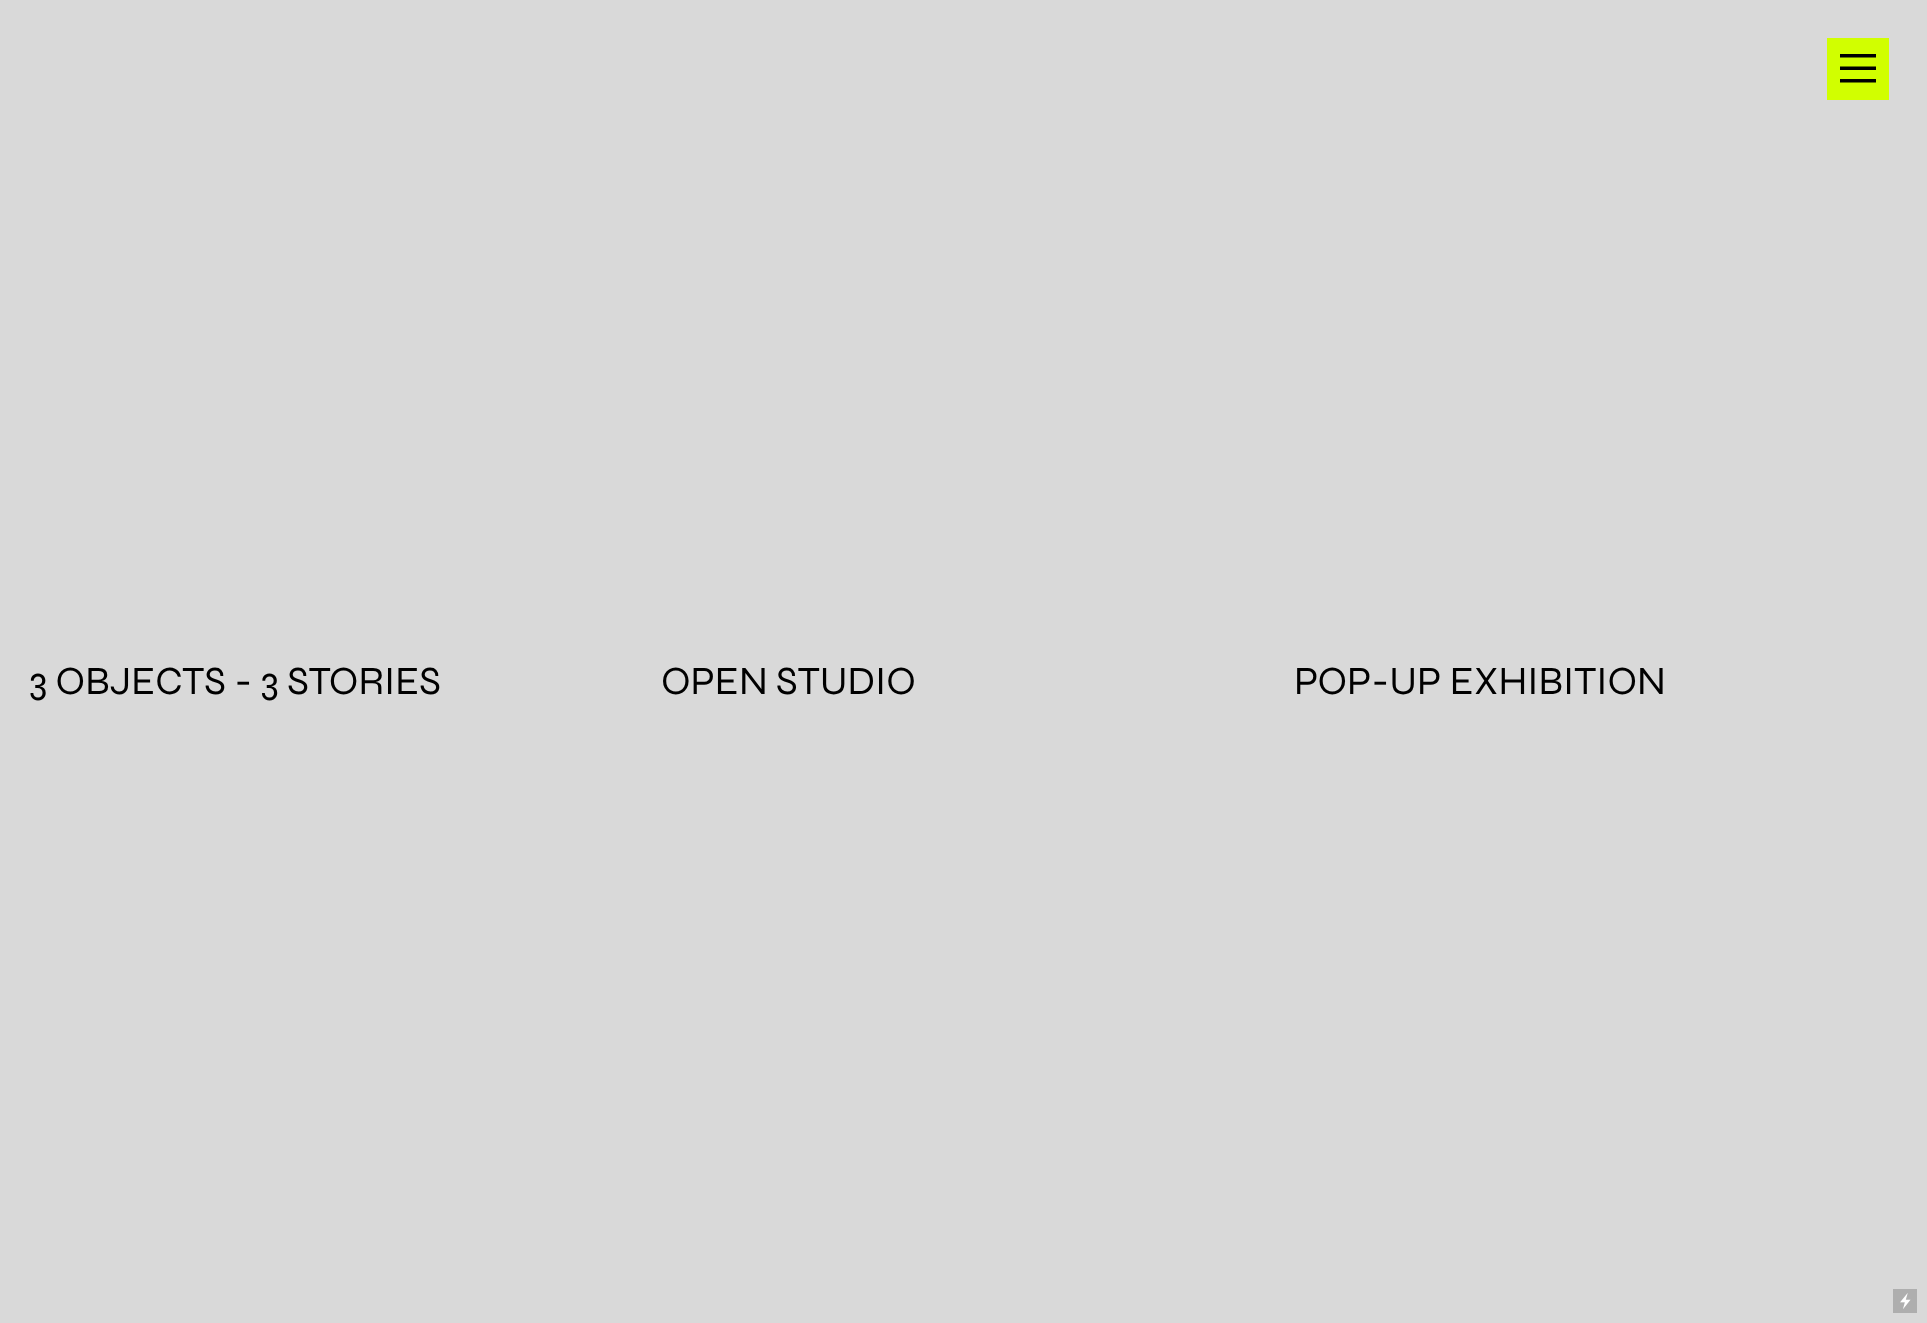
<svg xmlns="http://www.w3.org/2000/svg" width="1927" height="1323">
	<rect width="100%" height="100%" fill="#D9D9D9" />
	<rect x="1827" y="38" width="62" height="62" fill="#D1FF00" />
	<path d="M1876 54V57.5H1840V54ZM1876 66.5V70H1840V66.5ZM1876 79V82.5H1840V79Z" fill="#000000" />
	<g font-family="Syne" font-size="40" fill="#000000">
		<text x="29" y="694">3 OBJECTS - 3 STORIES</text>
		<text x="661" y="694">OPEN STUDIO</text>
		<text x="1294" y="694">POP-UP EXHIBITION</text>
	</g>
	<rect x="1893" y="1289" width="24" height="24" fill="#AEAEAE" />
	<image x="1900" y="1293" width="11" height="16" href="assets/img1.png" />
</svg>
